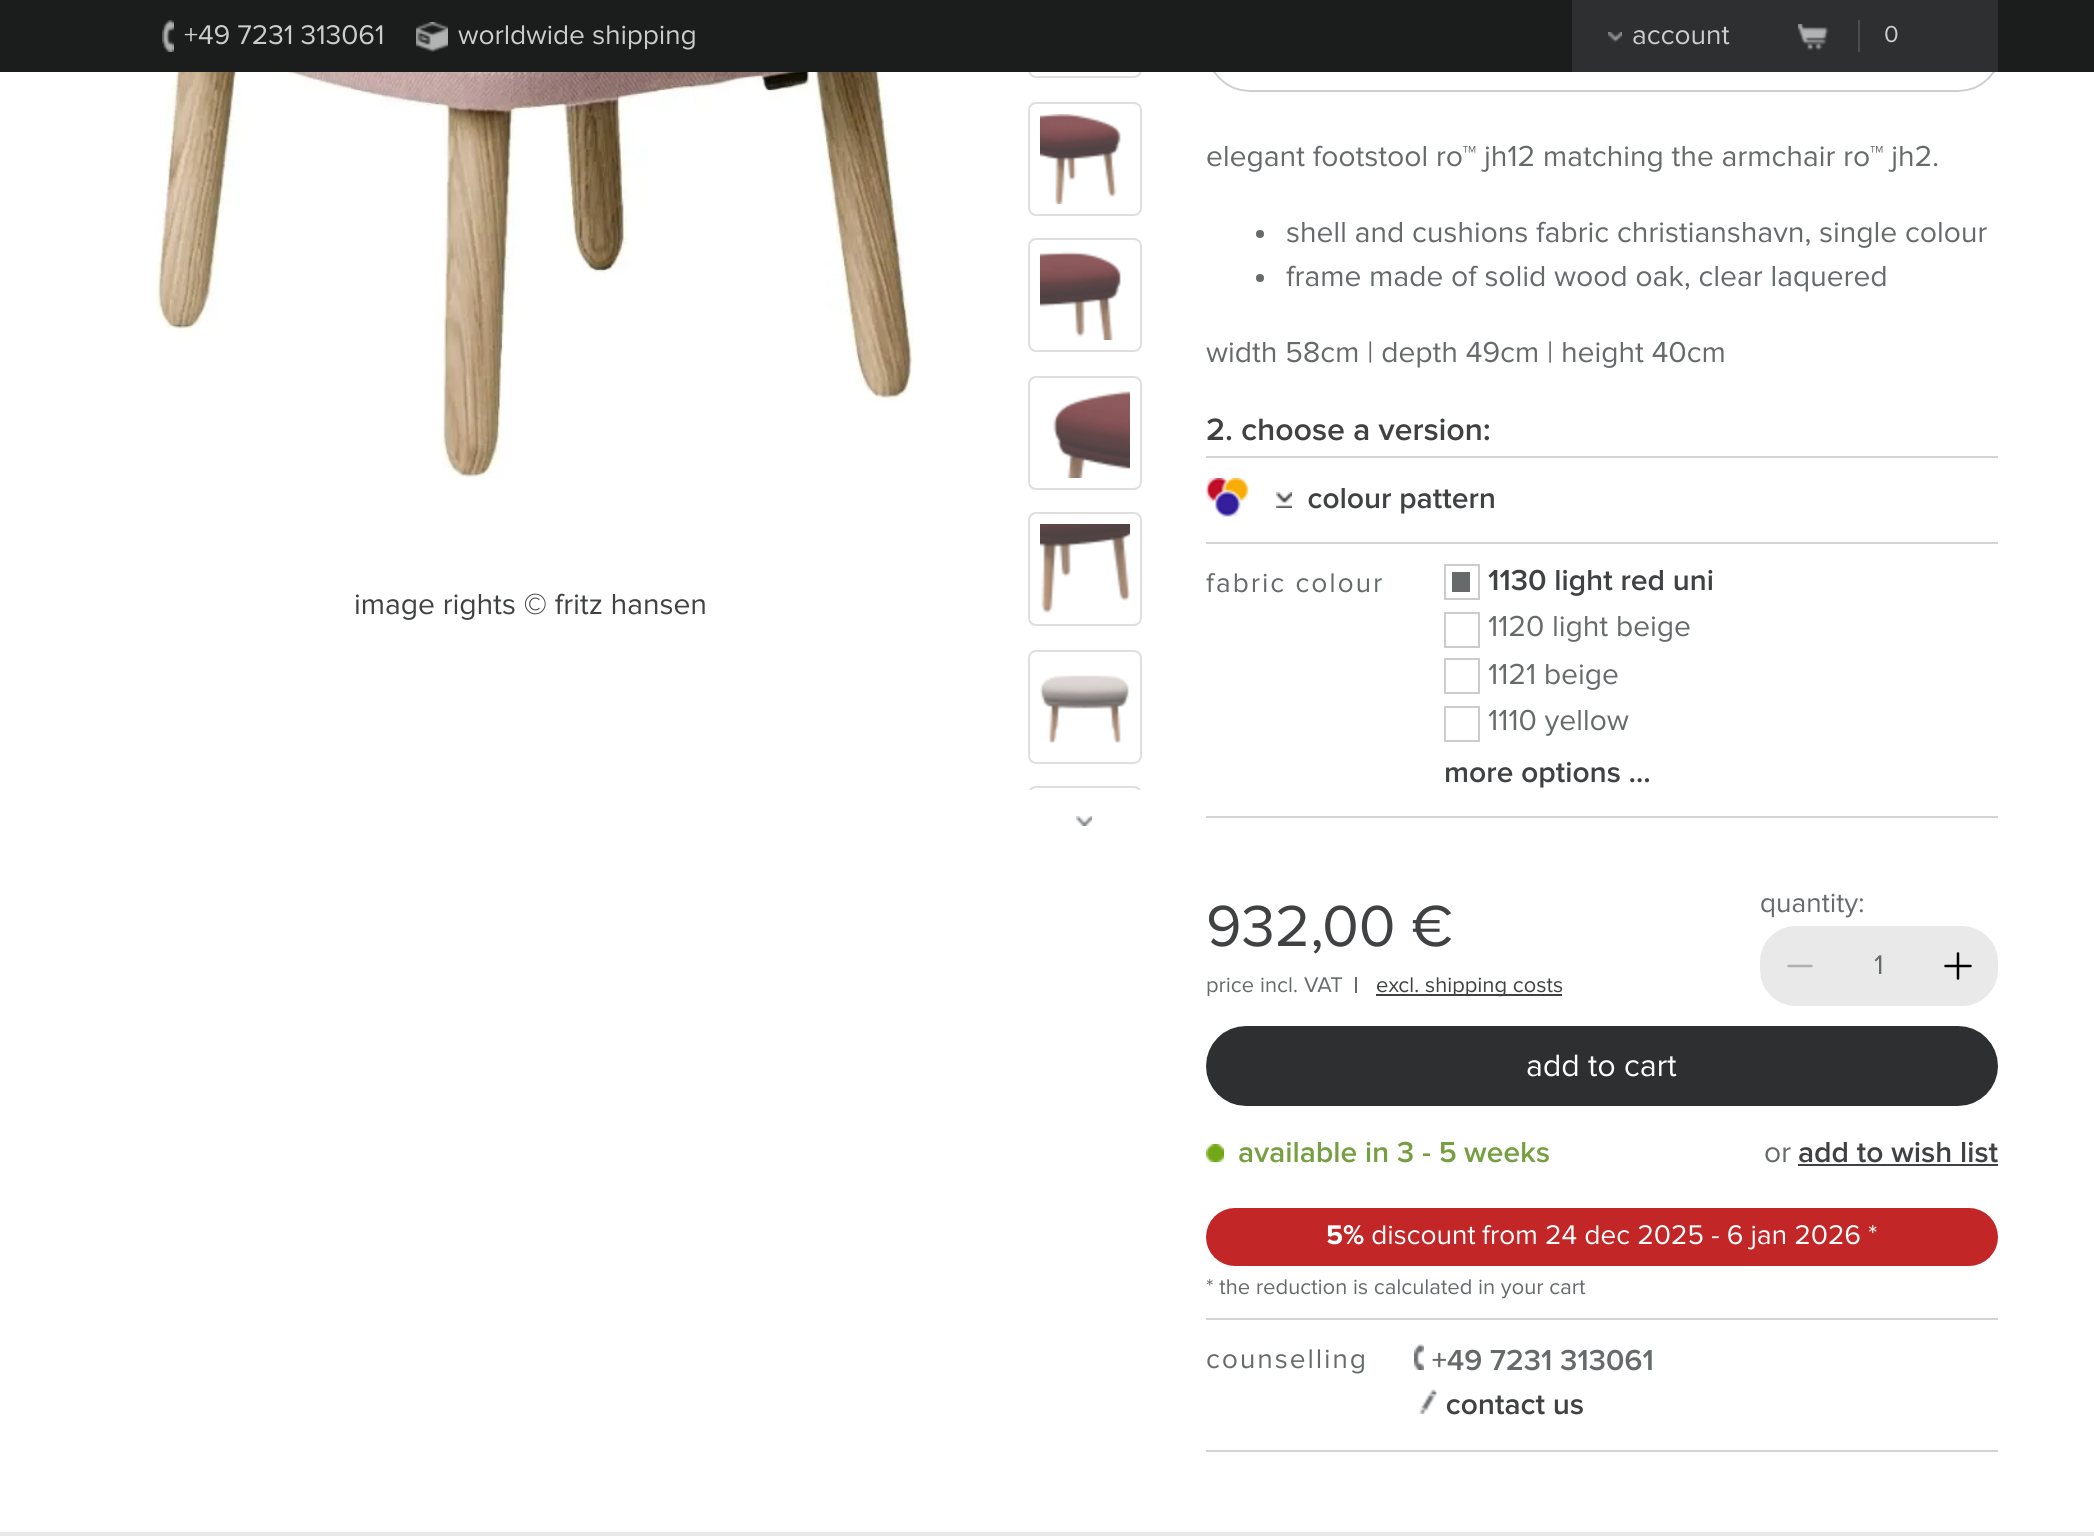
<svg xmlns="http://www.w3.org/2000/svg" width="2094" height="1536">
	<defs>
		<clipPath id="clip1"><rect x="1026" y="0" width="116" height="790" /></clipPath>
	</defs>
	<rect width="100%" height="100%" fill="#FFFFFF" />
	<image x="142" y="72" width="797" height="407" href="assets/img1.png" />
	<image x="355" y="593" width="350" height="27" href="assets/img2.png" />
	<rect x="1029" y="-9" width="112" height="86" rx="7" fill="none" stroke="#DFDFDF" stroke-width="2" />
	<rect x="1029" y="103" width="112" height="112" rx="7" fill="none" stroke="#DFDFDF" stroke-width="2" />
	<image x="1040" y="114" width="81" height="90" href="assets/img3.png" />
	<rect x="1029" y="239" width="112" height="112" rx="7" fill="none" stroke="#DFDFDF" stroke-width="2" />
	<image x="1040" y="251" width="81" height="89" href="assets/img4.png" />
	<rect x="1029" y="377" width="112" height="112" rx="7" fill="none" stroke="#DFDFDF" stroke-width="2" />
	<image x="1053" y="391" width="77" height="87" href="assets/img5.png" />
	<rect x="1029" y="513" width="112" height="112" rx="7" fill="none" stroke="#DFDFDF" stroke-width="2" />
	<image x="1040" y="524" width="90" height="89" href="assets/img6.png" />
	<rect x="1029" y="651" width="112" height="112" rx="7" fill="none" stroke="#DFDFDF" stroke-width="2" />
	<image x="1040" y="675" width="90" height="68" href="assets/img7.png" />
	<g clip-path="url(#clip1)">
		<rect x="1029" y="787" width="112" height="112" rx="7" fill="none" stroke="#DFDFDF" stroke-width="2" />
	</g>
	<image x="1076" y="816" width="16" height="10" href="assets/img8.png" />
	<rect x="1207" y="-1" width="794" height="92" rx="43" fill="none" stroke="#CCCFD0" stroke-width="2" />
	<image x="1207" y="145" width="731" height="27" href="assets/img9.png" />
	<circle cx="1260" cy="234" r="4" fill="#666A6B" />
	<image x="1287" y="221" width="700" height="27" href="assets/img10.png" />
	<circle cx="1260" cy="278" r="4" fill="#666A6B" />
	<image x="1286" y="265" width="600" height="27" href="assets/img11.png" />
	<image x="1206" y="341" width="518" height="27" href="assets/img12.png" />
	<image x="1207" y="418" width="282" height="23" href="assets/img13.png" />
	<rect x="1206" y="456" width="792" height="2" fill="#D4D4D4" />
	<image x="1206" y="478" width="43" height="39" href="assets/img14.png" />
	<image x="1276" y="492" width="16" height="16" href="assets/img15.png" />
	<image x="1308" y="488" width="186" height="26" href="assets/img16.png" />
	<rect x="1206" y="542" width="792" height="2" fill="#D4D4D4" />
	<rect x="1206" y="816" width="792" height="2" fill="#D4D4D4" />
	<image x="1206" y="573" width="176" height="20" href="assets/img17.png" />
	<rect x="1445" y="565" width="34" height="34" fill="none" stroke="#CBCDCD" stroke-width="2" />
	<rect x="1452" y="572" width="18" height="20" fill="#666A6B" />
	<image x="1488" y="569" width="225" height="27" href="assets/img18.png" />
	<rect x="1445" y="613" width="34" height="34" fill="none" stroke="#CBCDCD" stroke-width="2" />
	<image x="1488" y="615" width="202" height="27" href="assets/img19.png" />
	<rect x="1445" y="659" width="34" height="34" fill="none" stroke="#CBCDCD" stroke-width="2" />
	<image x="1488" y="663" width="130" height="27" href="assets/img20.png" />
	<rect x="1445" y="707" width="34" height="34" fill="none" stroke="#CBCDCD" stroke-width="2" />
	<image x="1488" y="709" width="141" height="27" href="assets/img21.png" />
	<image x="1446" y="761" width="204" height="27" href="assets/img22.png" />
	<image x="1208" y="905" width="244" height="49" href="assets/img23.png" />
	<image x="1207" y="977" width="46" height="20" href="assets/img24.png" />
	<image x="1261" y="977" width="36" height="16" href="assets/img25.png" />
	<image x="1304" y="977" width="39" height="15" href="assets/img26.png" />
	<rect x="1355" y="977" width="2" height="16" fill="#666A6B" />
	<rect x="1376" y="994" width="186" height="2" fill="#3F4142" />
	<image x="1377" y="977" width="186" height="20" href="assets/img27.png" />
	<image x="1761" y="893" width="102" height="25" href="assets/img28.png" />
	<rect x="1762" y="928" width="234" height="76" rx="34" fill="#E9E9E9" stroke="#E9E9E9" stroke-width="4" />
	<image x="1874" y="955" width="8" height="19" href="assets/img29.png" />
	<path d="M1788.5 966H1811.5" fill="none" stroke="#AFAFAF" stroke-width="2.5" stroke-linecap="round" stroke-linejoin="round" />
	<path d="M1958 953.5V978.5M1970.5 966H1945.5" fill="none" stroke="#000000" stroke-width="2.5" stroke-linecap="round" stroke-linejoin="round" />
	<rect x="1206" y="1026" width="792" height="80" rx="40" fill="#2E2F30" />
	<image x="1527" y="1054" width="150" height="23" href="assets/img30.png" />
	<image x="1206" y="1144" width="18" height="18" href="assets/img31.png" />
	<image x="1239" y="1141" width="174" height="22" href="assets/img32.png" />
	<image x="1422" y="1142" width="34" height="21" href="assets/img33.png" />
	<image x="1464" y="1142" width="85" height="21" href="assets/img34.png" />
	<image x="1765" y="1147" width="26" height="16" href="assets/img35.png" />
	<image x="1799" y="1141" width="199" height="22" href="assets/img36.png" />
	<rect x="1798" y="1164" width="200" height="2" fill="#3F4142" />
	<rect x="1206" y="1208" width="792" height="58" rx="29" fill="#C22626" />
	<image x="1327" y="1225" width="37" height="20" href="assets/img37.png" />
	<image x="1372" y="1225" width="104" height="20" href="assets/img38.png" />
	<image x="1482" y="1225" width="378" height="25" href="assets/img39.png" />
	<image x="1869" y="1225" width="8" height="9" href="assets/img40.png" />
	<image x="1206" y="1279" width="380" height="20" href="assets/img41.png" />
	<rect x="1206" y="1318" width="792" height="2" fill="#D4D4D4" />
	<rect x="1206" y="1450" width="792" height="2" fill="#D4D4D4" />
	<image x="1207" y="1349" width="157" height="25" href="assets/img42.png" />
	<image x="1414" y="1344" width="10" height="26" href="assets/img43.png" />
	<image x="1432" y="1349" width="220" height="22" href="assets/img44.png" />
	<image x="1419" y="1389" width="19" height="25" href="assets/img45.png" />
	<image x="1446" y="1395" width="137" height="20" href="assets/img46.png" />
	<rect x="0" y="1532" width="2094" height="4" fill="#E9E9E9" />
	<rect x="0" y="0" width="2094" height="72" fill="#1B1C1C" />
	<image x="162" y="20" width="12" height="32" href="assets/img47.png" />
	<image x="184" y="25" width="199" height="20" href="assets/img48.png" />
	<image x="416" y="22" width="32" height="30" href="assets/img49.png" />
	<image x="458" y="25" width="237" height="25" href="assets/img50.png" />
	<rect x="1572" y="0" width="426" height="72" fill="#2E2F30" />
	<image x="1608" y="32" width="14" height="11" href="assets/img51.png" />
	<image x="1633" y="26" width="97" height="19" href="assets/img52.png" />
	<image x="1798" y="24" width="31" height="27" href="assets/img53.png" />
	<rect x="1858" y="20" width="2" height="32" fill="#4D4E4F" />
	<image x="1885" y="25" width="13" height="18" href="assets/img54.png" />
</svg>
